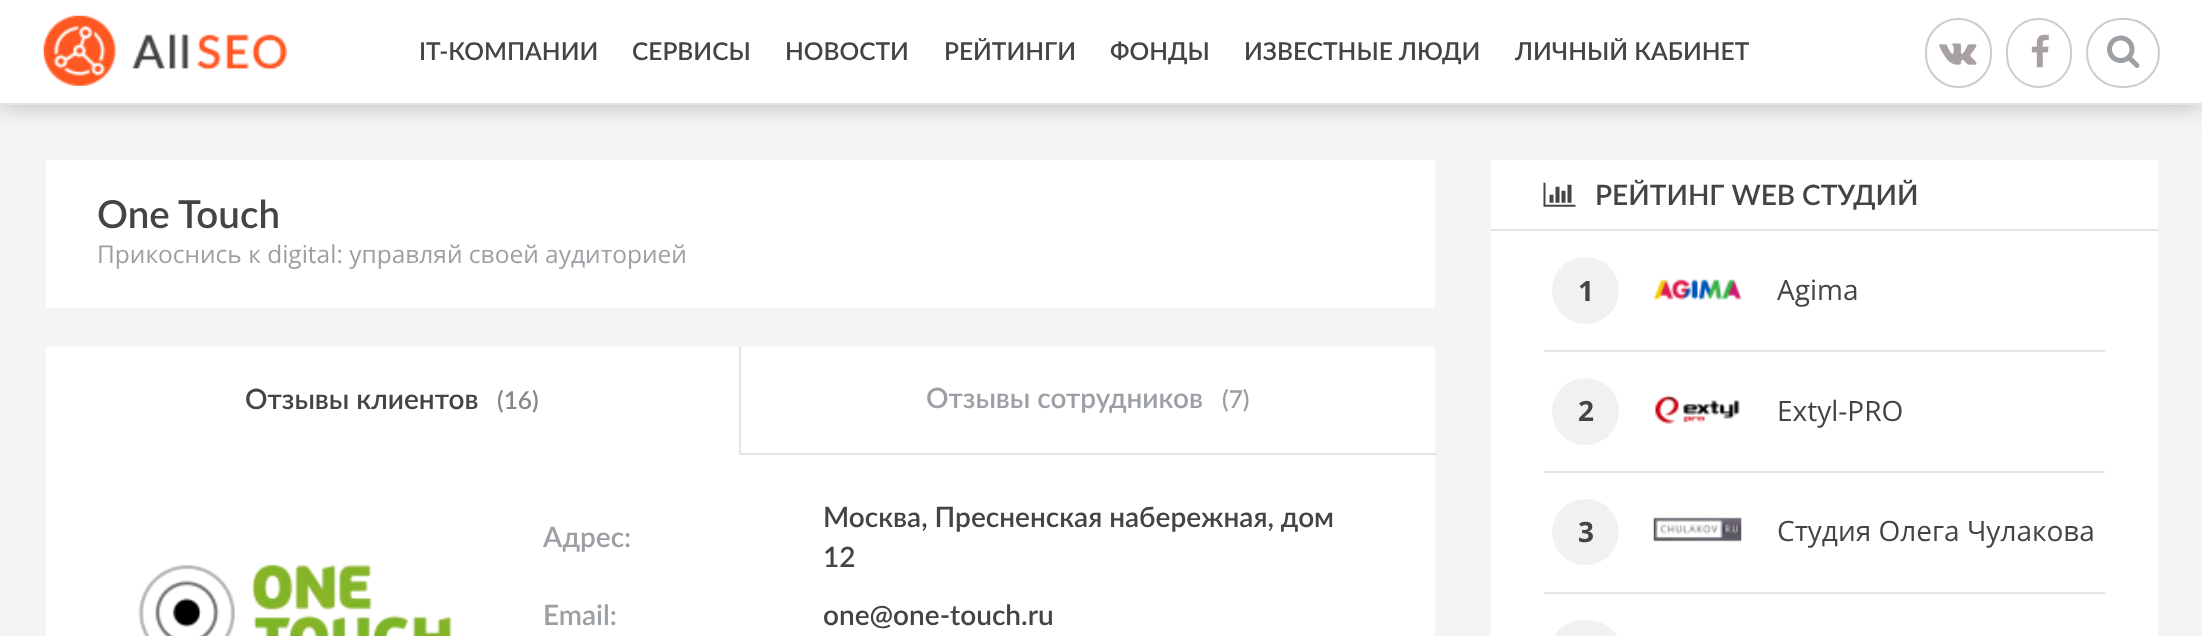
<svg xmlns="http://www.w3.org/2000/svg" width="2202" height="636">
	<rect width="100%" height="100%" fill="#F5F5F5" />
	<rect x="0" y="-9" width="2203" height="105" fill="#000000" fill-opacity="0.5" filter="blur(16px)" />
	<rect x="0" y="0" width="2202" height="103" fill="#FFFFFF" />
	<rect x="0" y="103" width="2202" height="2" fill="#E5E5E5" />
	<image x="43" y="15" width="244" height="71" href="assets/img1.png" />
	<g font-family="Lato" font-size="24.5" font-weight="600" fill="#444444">
		<text x="419" y="60">IT-КОМПАНИИ</text>
		<text x="632" y="60">СЕРВИСЫ</text>
		<text x="785" y="60">НОВОСТИ</text>
		<text x="944" y="60">РЕЙТИНГИ</text>
		<text x="1110" y="60">ФОНДЫ</text>
		<text x="1244" y="60">ИЗВЕСТНЫЕ ЛЮДИ</text>
		<text x="1515" y="60">ЛИЧНЫЙ КАБИНЕТ</text>
	</g>
	<rect x="1926" y="19" width="65" height="68" rx="32.5" fill="none" stroke="#CCCCCC" stroke-width="2" />
	<image x="1939" y="43" width="38" height="22" href="assets/img2.png" />
	<rect x="2007" y="19" width="64" height="68" rx="32" fill="none" stroke="#CCCCCC" stroke-width="2" />
	<image x="2031" y="34" width="18" height="34" href="assets/img3.png" />
	<image x="2107" y="35" width="33" height="33" href="assets/img4.png" />
	<rect x="2087" y="19" width="72" height="68" rx="34" fill="none" stroke="#CCCCCC" stroke-width="2" />
	<rect x="46" y="160" width="1389" height="148" fill="#FFFFFF" />
	<text x="97" y="228" font-family="Lato" font-size="38.5" font-weight="600" fill="#444444">One Touch</text>
	<text x="97" y="263" font-family="Open Sans" font-size="24.5" fill="#9CA0A5">Прикоснись к digital: управляй своей аудиторией</text>
	<rect x="46" y="347" width="1389" height="289" fill="#FFFFFF" />
	<text x="245" y="409" font-family="Lato" font-size="28" font-weight="600" fill="#444444">Отзывы клиентов</text>
	<text x="497" y="409" font-family="Lato" font-size="24.5" font-weight="600" fill="#888888">(16)</text>
	<rect x="739" y="453" width="698" height="2" fill="#E5E5E5" />
	<rect x="739" y="347" width="2" height="108" fill="#E5E5E5" />
	<text x="926" y="408" font-family="Lato" font-size="28" font-weight="600" fill="#9CA0A5">Отзывы сотрудников</text>
	<text x="1222" y="408" font-family="Lato" font-size="24.5" font-weight="600" fill="#9CA0A5">(7)</text>
	<image x="138" y="563" width="314" height="73" href="assets/img5.png" />
	<text x="543" y="547" font-family="Lato" font-size="28" font-weight="600" fill="#9CA0A5">Адрес:</text>
	<g font-family="Lato" font-size="28" font-weight="600" fill="#444444">
		<text x="823" y="527">Москва, Пресненская набережная, дом</text>
		<text x="823" y="567">12</text>
	</g>
	<text x="543" y="625" font-family="Lato" font-size="28" font-weight="600" fill="#9CA0A5">Email:</text>
	<text x="823" y="625" font-family="Lato" font-size="28" font-weight="600" fill="#444444">one@one-touch.ru</text>
	<rect x="1491" y="160" width="667" height="476" fill="#FFFFFF" />
	<rect x="1491" y="229" width="667" height="2" fill="#E5E5E5" />
	<image x="1543" y="182" width="33" height="25" href="assets/img6.png" />
	<text x="1595" y="205" font-family="Lato" font-size="28" font-weight="600" fill="#444444">РЕЙТИНГ WEB СТУДИЙ</text>
	<rect x="1544" y="350" width="561" height="2" fill="#E5E5E5" />
	<circle cx="1585.5" cy="290.5" r="33.5" fill="#F1F1F1" />
	<text x="1578" y="301" font-family="Open Sans" font-size="28" font-weight="700" fill="#444444">1</text>
	<image x="1653" y="279" width="89" height="21" href="assets/img7.png" />
	<text x="1777" y="300" font-family="Open Sans" font-size="28" fill="#444444">Agima</text>
	<rect x="1544" y="471" width="561" height="2" fill="#E5E5E5" />
	<circle cx="1585.5" cy="411.5" r="33.5" fill="#F1F1F1" />
	<text x="1578" y="421" font-family="Open Sans" font-size="28" font-weight="700" fill="#444444">2</text>
	<image x="1654" y="395" width="86" height="29" href="assets/img8.png" />
	<text x="1777" y="421" font-family="Open Sans" font-size="28" fill="#444444">Extyl-PRO</text>
	<rect x="1544" y="592" width="561" height="2" fill="#E5E5E5" />
	<rect x="1552" y="499" width="67" height="66" rx="33" fill="#F1F1F1" />
	<text x="1578" y="542" font-family="Open Sans" font-size="28" font-weight="700" fill="#444444">3</text>
	<image x="1653" y="517" width="89" height="25" href="assets/img9.png" />
	<text x="1777" y="541" font-family="Open Sans" font-size="28" fill="#444444">Студия Олега Чулакова</text>
	<rect x="1552" y="620" width="67" height="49" rx="33" fill="#F1F1F1" />
</svg>
